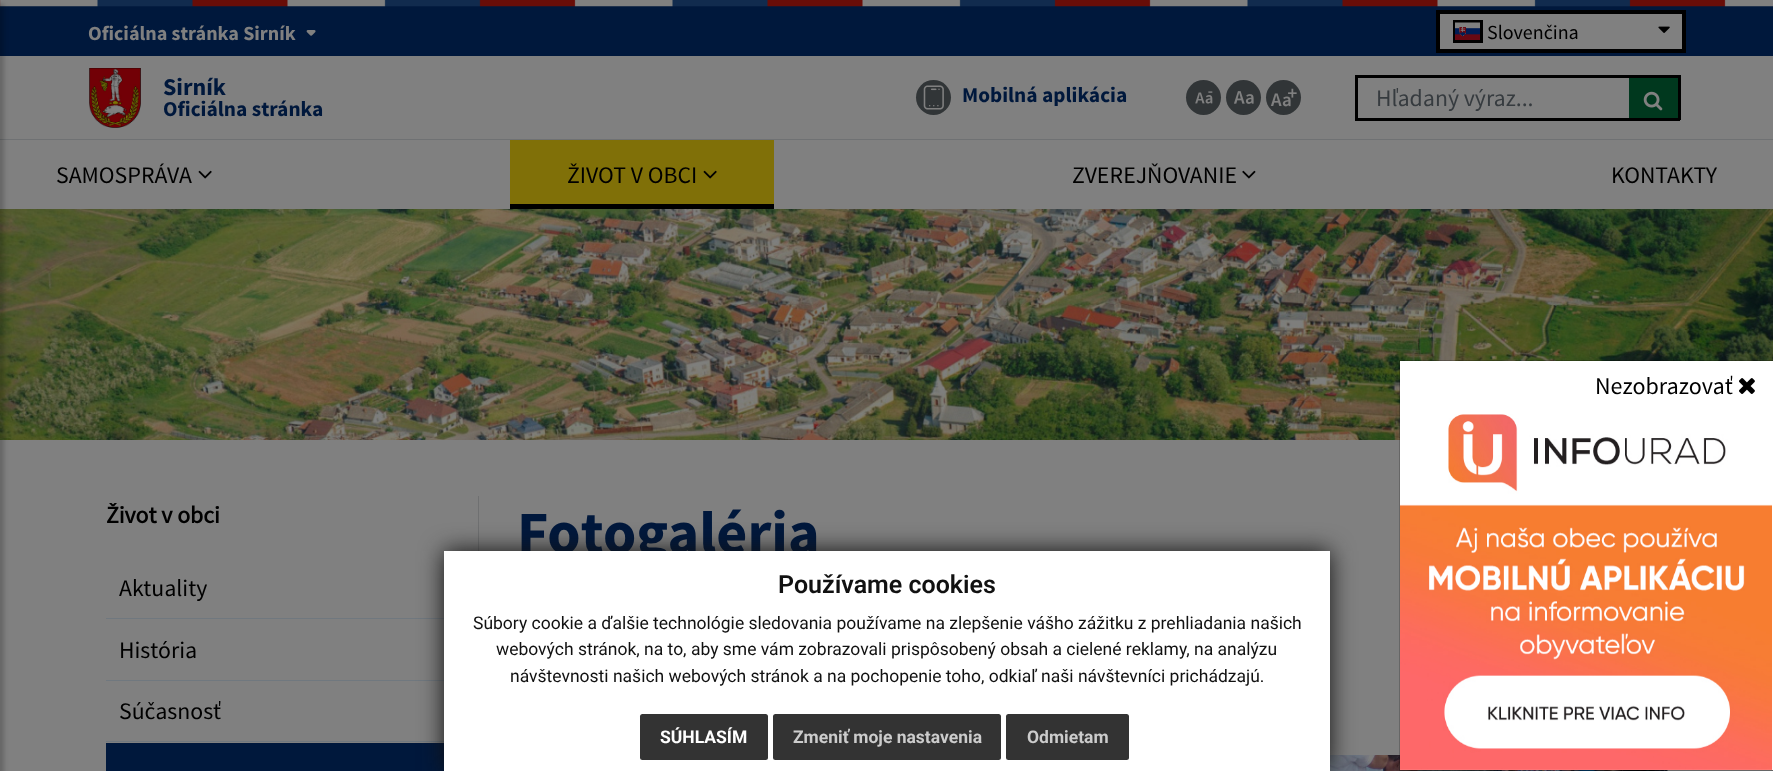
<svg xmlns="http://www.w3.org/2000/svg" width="1773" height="771">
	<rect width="100%" height="100%" fill="#808080" />
	<rect x="0" y="6" width="1773" height="50" fill="#00183C" />
	<image x="0" y="0" width="1773" height="7" href="assets/img1.png" />
	<rect x="0" y="139" width="1773" height="1" fill="#6F7173" />
	<image x="0" y="209" width="1773" height="231" href="assets/img14.png" />
	<rect x="-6" y="4" width="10" height="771" fill="#000000" fill-opacity="0.2" filter="blur(2px)" />
	<text x="88" y="40" font-family="'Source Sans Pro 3'" font-size="20" font-weight="700" fill="#808080">Oficiálna stránka Sirník</text>
	<image x="306" y="30" width="10" height="6" href="assets/img2.png" />
	<rect x="1438" y="12" width="246" height="39" fill="#808080" stroke="#000000" stroke-width="4" />
	<rect x="1454.5" y="21.5" width="27" height="20" fill="none" stroke="#000000" stroke-width="3" />
	<image x="1455" y="22" width="25" height="18" href="assets/img3.png" />
	<text x="1487" y="39" font-family="Source Sans Pro" font-size="20" fill="#000000">Slovenčina</text>
	<image x="1658" y="26" width="12" height="7" href="assets/img4.png" />
	<image x="89" y="68" width="52" height="60" href="assets/img5.png" />
	<text x="163" y="95" font-family="'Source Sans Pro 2'" font-size="24" font-weight="700" fill="#00183C">Sirník</text>
	<text x="163" y="116" font-family="'Source Sans Pro 2'" font-size="21.25" font-weight="700" fill="#00183C">Oficiálna stránka</text>
	<circle cx="933.5" cy="97.5" r="17.5" fill="#313537" />
	<image x="923" y="85" width="21" height="25" href="assets/img6.png" />
	<text x="962" y="102" font-family="'Source Sans Pro 2'" font-size="21.25" font-weight="700" fill="#00183C">Mobilná aplikácia</text>
	<circle cx="1203.5" cy="97.5" r="17.5" fill="#313537" />
	<image x="1195" y="91" width="18" height="13" href="assets/img7.png" />
	<circle cx="1243.5" cy="97.5" r="17.5" fill="#313537" />
	<image x="1234" y="91" width="20" height="13" href="assets/img8.png" />
	<circle cx="1283.5" cy="97.5" r="17.5" fill="#313537" />
	<image x="1270" y="88" width="27" height="19" href="assets/img9.png" />
	<rect x="1355" y="75" width="325" height="3" fill="#000000" />
	<rect x="1355" y="118" width="274" height="3" fill="#000000" />
	<rect x="1355" y="75" width="3" height="45" fill="#000000" />
	<text x="1376" y="106" font-family="Source Sans Pro" font-size="23.75" fill="#363B3F">Hľadaný výraz...</text>
	<rect x="1629" y="78" width="49" height="40" fill="#00381E" />
	<rect x="1678" y="75" width="3" height="45" fill="#000000" />
	<rect x="1629" y="118" width="51" height="3" fill="#000000" />
	<image x="1643" y="91" width="20" height="20" href="assets/img10.png" />
	<text x="56" y="183" font-family="Source Sans Pro" font-size="23.75" fill="#000000">SAMOSPRÁVA</text>
	<image x="198" y="170" width="14" height="9" href="assets/img11.png" />
	<rect x="510" y="140" width="264" height="64" fill="#807008" />
	<text x="567" y="183" font-family="Source Sans Pro" font-size="23.75" fill="#000000">ŽIVOT V OBCI</text>
	<image x="703" y="170" width="14" height="9" href="assets/img12.png" />
	<rect x="510" y="204" width="264" height="5" fill="#000000" />
	<text x="1072" y="183" font-family="Source Sans Pro" font-size="23.75" fill="#000000">ZVEREJŇOVANIE</text>
	<image x="1242" y="170" width="14" height="9" href="assets/img13.png" />
	<text x="1611" y="183" font-family="Source Sans Pro" font-size="23.75" fill="#000000">KONTAKTY</text>
	<text x="106" y="523" font-family="Source Sans Pro" font-size="23.75" font-weight="700" fill="#000000">Život v obci</text>
	<rect x="106" y="618" width="338" height="1" fill="#70787F" />
	<text x="119" y="596" font-family="Source Sans Pro" font-size="23.75" fill="#000000">Aktuality</text>
	<rect x="106" y="680" width="338" height="1" fill="#70787F" />
	<text x="119" y="658" font-family="Source Sans Pro" font-size="23.75" fill="#000000">História</text>
	<rect x="106" y="741" width="338" height="1" fill="#70787F" />
	<text x="119" y="719" font-family="Source Sans Pro" font-size="23.75" fill="#000000">Súčasnosť</text>
	<rect x="106" y="743" width="338" height="28" fill="#00183C" />
	<rect x="478" y="496" width="1" height="55" fill="#6F7071" />
	<text x="517" y="553" font-family="'Source Sans Pro 2'" font-size="60" font-weight="700" fill="#00183C">Fotogaléria</text>
	<image x="1330" y="755" width="338" height="16" href="assets/img15.png" />
	<rect x="1400" y="361" width="373" height="409" fill="#FFFFFF" />
	<rect x="1399.5" y="360.5" width="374" height="410" fill="none" stroke="#000000" stroke-opacity="0.2" />
	<text x="1595" y="394" font-family="Source Sans Pro" font-size="24" fill="#000000">Nezobrazovať</text>
	<image x="1739" y="378" width="16" height="16" href="assets/img16.png" />
	<image x="1400" y="414" width="372" height="356" href="assets/img17.png" />
	<rect x="444" y="551" width="886" height="220" fill="#111111" filter="blur(12.5px)" />
	<rect x="444" y="551" width="886" height="220" fill="#FFFFFF" />
	<text x="778" y="593" font-family="Roboto" font-size="25" font-weight="600" fill="#111111">Používame cookies</text>
	<g font-family="Roboto" font-size="17.5" fill="#111111">
		<text x="473" y="629">Súbory cookie a ďalšie technológie sledovania používame na zlepšenie vášho zážitku z prehliadania našich</text>
		<text x="496" y="655">webových stránok, na to, aby sme vám zobrazovali prispôsobený obsah a cielené reklamy, na analýzu</text>
		<text x="510" y="682">návštevnosti našich webových stránok a na pochopenie toho, odkiaľ naši návštevníci prichádzajú.</text>
	</g>
	<rect x="640" y="714" width="128" height="46" rx="2.5" fill="#333333" />
	<text x="660" y="743" font-family="Roboto" font-size="17.5" font-weight="700" fill="#FFFFFF">SÚHLASÍM</text>
	<rect x="773" y="714" width="228" height="46" rx="2.5" fill="#333333" />
	<text x="793" y="743" font-family="Roboto" font-size="17.5" font-weight="700" fill="#CCCCCC">Zmeniť moje nastavenia</text>
	<rect x="1006" y="714" width="123" height="46" rx="2.5" fill="#333333" />
	<text x="1027" y="743" font-family="Roboto" font-size="17.5" font-weight="700" fill="#CCCCCC">Odmietam</text>
</svg>
